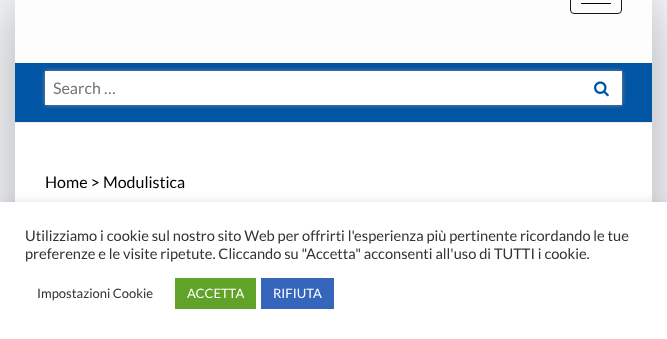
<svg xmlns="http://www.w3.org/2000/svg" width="667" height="339">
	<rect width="100%" height="100%" fill="#F7F9FC" />
	<rect x="15" y="0" width="637" height="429" fill="#000000" fill-opacity="0.3" filter="blur(30px)" />
	<rect x="15" y="0" width="637" height="63" fill="#FDFDFE" />
	<rect x="15" y="63" width="637" height="59" fill="#0055A5" />
	<rect x="15" y="122" width="637" height="1" fill="#EDEDED" />
	<rect x="570.5" y="-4.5" width="51" height="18" rx="3.5" fill="none" stroke="#191919" />
	<rect x="581" y="3" width="30" height="1" fill="#000000" />
	<rect x="45" y="71" width="577" height="34" fill="#888888" filter="blur(2.5px)" />
	<rect x="45" y="71" width="577" height="34" fill="#FFFFFF" />
	<text x="53" y="94" font-family="Lato" font-size="16" fill="#757575">Search …</text>
	<image x="594" y="81" width="15" height="16" href="assets/img1.png" />
	<rect x="15" y="123" width="637" height="79" fill="#FFFFFF" />
	<text x="45" y="188" font-family="Lato" font-size="16" fill="#000000">Home &gt; Modulistica</text>
	<rect x="0" y="201" width="667" height="137" fill="#ACABAB" fill-opacity="0.3" filter="blur(5px)" />
	<rect x="0" y="202" width="667" height="137" fill="#FFFFFF" />
	<g font-family="Lato" font-size="14.65" fill="#333333">
		<text x="25" y="241">Utilizziamo i cookie sul nostro sito Web per offrirti l'esperienza più pertinente ricordando le tue</text>
		<text x="25" y="259">preferenze e le visite ripetute. Cliccando su "Accetta" acconsenti all'uso di TUTTI i cookie.</text>
	</g>
	<text x="37" y="298" font-family="Lato" font-size="13" fill="#333333">Impostazioni Cookie</text>
	<rect x="175" y="278" width="81" height="31" fill="#61A229" />
	<text x="187" y="298" font-family="Lato" font-size="13" fill="#FFFFFF">ACCETTA</text>
	<rect x="261" y="278" width="73" height="31" fill="#3566BB" />
	<text x="273" y="298" font-family="Lato" font-size="13" fill="#FFFFFF">RIFIUTA</text>
</svg>
